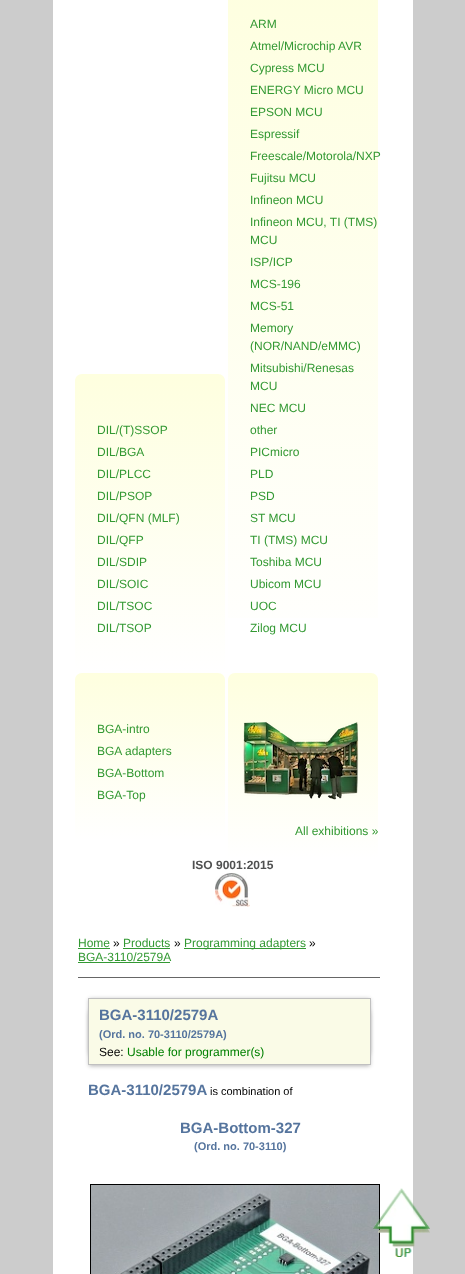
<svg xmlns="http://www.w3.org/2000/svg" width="465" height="1274">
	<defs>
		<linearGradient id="g1" gradientUnits="userSpaceOnUse" x1="150" y1="374" x2="150" y2="673"><stop offset="0" stop-color="#FEFFDF" /><stop offset="1" stop-color="#FFFFFF" /></linearGradient>
		<linearGradient id="g2" gradientUnits="userSpaceOnUse" x1="303" y1="-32" x2="303" y2="673"><stop offset="0" stop-color="#FEFFDF" /><stop offset="1" stop-color="#FFFFFF" /></linearGradient>
		<linearGradient id="g3" gradientUnits="userSpaceOnUse" x1="150" y1="673" x2="150" y2="840"><stop offset="0" stop-color="#FEFFDF" /><stop offset="1" stop-color="#FFFFFF" /></linearGradient>
		<linearGradient id="g4" gradientUnits="userSpaceOnUse" x1="303" y1="673" x2="303" y2="859"><stop offset="0" stop-color="#FEFFDF" /><stop offset="1" stop-color="#FFFFFF" /></linearGradient>
	</defs>
	<rect width="100%" height="100%" fill="#CCCCCC" />
	<rect x="53" y="0" width="360" height="1274" fill="#FFFFFF" />
	<path d="M82 374H218C222 374 225 377 225 381V673H75V381C75 377 78 374 82 374Z" fill="url(#g1)" />
	<g font-family="Liberation Sans" font-size="12" fill="#339933">
		<text x="97" y="434">DIL/(T)SSOP</text>
		<text x="97" y="456">DIL/BGA</text>
		<text x="97" y="478">DIL/PLCC</text>
		<text x="97" y="500">DIL/PSOP</text>
		<text x="97" y="522">DIL/QFN (MLF)</text>
		<text x="97" y="544">DIL/QFP</text>
		<text x="97" y="566">DIL/SDIP</text>
		<text x="97" y="588">DIL/SOIC</text>
		<text x="97" y="610">DIL/TSOC</text>
		<text x="97" y="632">DIL/TSOP</text>
	</g>
	<rect x="228" y="0" width="150" height="618" fill="url(#g2)" />
	<g font-family="Liberation Sans" font-size="12" fill="#339933">
		<text x="250" y="28">ARM</text>
		<text x="250" y="50">Atmel/Microchip AVR</text>
		<text x="250" y="72">Cypress MCU</text>
		<text x="250" y="94">ENERGY Micro MCU</text>
		<text x="250" y="116">EPSON MCU</text>
		<text x="250" y="138">Espressif</text>
		<text x="250" y="160">Freescale/Motorola/NXP</text>
		<text x="250" y="182">Fujitsu MCU</text>
		<text x="250" y="204">Infineon MCU</text>
		<text x="250" y="226">Infineon MCU, TI (TMS)</text>
		<text x="250" y="244">MCU</text>
		<text x="250" y="266">ISP/ICP</text>
		<text x="250" y="288">MCS-196</text>
		<text x="250" y="310">MCS-51</text>
		<text x="250" y="332">Memory</text>
		<text x="250" y="350">(NOR/NAND/eMMC)</text>
		<text x="250" y="372">Mitsubishi/Renesas</text>
		<text x="250" y="390">MCU</text>
		<text x="250" y="412">NEC MCU</text>
		<text x="250" y="434">other</text>
		<text x="250" y="456">PICmicro</text>
		<text x="250" y="478">PLD</text>
		<text x="250" y="500">PSD</text>
		<text x="250" y="522">ST MCU</text>
		<text x="250" y="544">TI (TMS) MCU</text>
		<text x="250" y="566">Toshiba MCU</text>
		<text x="250" y="588">Ubicom MCU</text>
		<text x="250" y="610">UOC</text>
		<text x="250" y="632">Zilog MCU</text>
	</g>
	<path d="M82 673H218C222 673 225 676 225 680V840H75V680C75 676 78 673 82 673Z" fill="url(#g3)" />
	<g font-family="Liberation Sans" font-size="12" fill="#339933">
		<text x="97" y="733">BGA-intro</text>
		<text x="97" y="755">BGA adapters</text>
		<text x="97" y="777">BGA-Bottom</text>
		<text x="97" y="799">BGA-Top</text>
	</g>
	<path d="M235 673H371C375 673 378 676 378 680V859H228V680C228 676 231 673 235 673Z" fill="url(#g4)" />
	<image x="243" y="722" width="116" height="78" href="assets/img1.png" />
	<text x="295" y="835" font-family="Liberation Sans" font-size="12" fill="#339933">All exhibitions »</text>
	<text x="192" y="869" font-family="Liberation Sans" font-size="12" font-weight="700" fill="#505151">ISO 9001:2015</text>
	<image x="215" y="873" width="35" height="34" href="assets/img2.png" />
	<rect x="78" y="977" width="302" height="1" fill="#666666" />
	<text x="78" y="947" font-family="Liberation Sans" font-size="12" fill="#339933">Home</text>
	<rect x="78" y="948" width="32" height="1" fill="#339933" />
	<text x="113" y="947" font-family="Liberation Sans" font-size="12" fill="#000000">»</text>
	<text x="123" y="947" font-family="Liberation Sans" font-size="12" fill="#339933">Products</text>
	<rect x="123" y="948" width="47" height="1" fill="#339933" />
	<text x="174" y="947" font-family="Liberation Sans" font-size="12" fill="#000000">»</text>
	<rect x="184" y="948" width="122" height="1" fill="#339933" />
	<text x="184" y="947" font-family="Liberation Sans" font-size="12" fill="#339933">Programming adapters</text>
	<text x="309" y="947" font-family="Liberation Sans" font-size="12" fill="#000000">»</text>
	<text x="78" y="961" font-family="Liberation Sans" font-size="12" fill="#339933">BGA-3110/2579A</text>
	<rect x="78" y="962" width="92" height="1" fill="#339933" />
	<rect x="89" y="999" width="281" height="67" fill="#000000" fill-opacity="0.3" filter="blur(2px)" />
	<rect x="89" y="1005" width="281" height="55" rx="10" fill="#000000" fill-opacity="0.3" filter="blur(2px)" />
	<rect x="88.5" y="998.5" width="282" height="66" fill="#FAFBE7" stroke="#C0C0C0" />
	<text x="99" y="1020" font-family="Liberation Sans" font-size="15" font-weight="700" fill="#55749D">BGA-3110/2579A</text>
	<text x="99" y="1038" font-family="Liberation Sans" font-size="11" font-weight="700" fill="#55749D">(Ord. no. 70-3110/2579A)</text>
	<text x="99" y="1056" font-family="Liberation Sans" font-size="12" fill="#000000">See:</text>
	<text x="127" y="1056" font-family="Liberation Sans" font-size="12" fill="#008000">Usable for programmer(s)</text>
	<text x="88" y="1095" font-family="Liberation Sans" font-size="15" font-weight="700" fill="#55749D">BGA-3110/2579A</text>
	<text x="210" y="1095" font-family="Liberation Sans" font-size="11" fill="#000000">is combination of</text>
	<text x="180" y="1133" font-family="Liberation Sans" font-size="15" font-weight="700" fill="#55749D">BGA-Bottom-327</text>
	<text x="194" y="1150" font-family="Liberation Sans" font-size="11" font-weight="700" fill="#55749D">(Ord. no. 70-3110)</text>
	<rect x="90.5" y="1184.5" width="289" height="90" fill="none" stroke="#000000" />
	<image x="91" y="1185" width="288" height="89" href="assets/img3.png" />
	<image x="373" y="1188" width="57" height="69" href="assets/img4.png" />
</svg>
